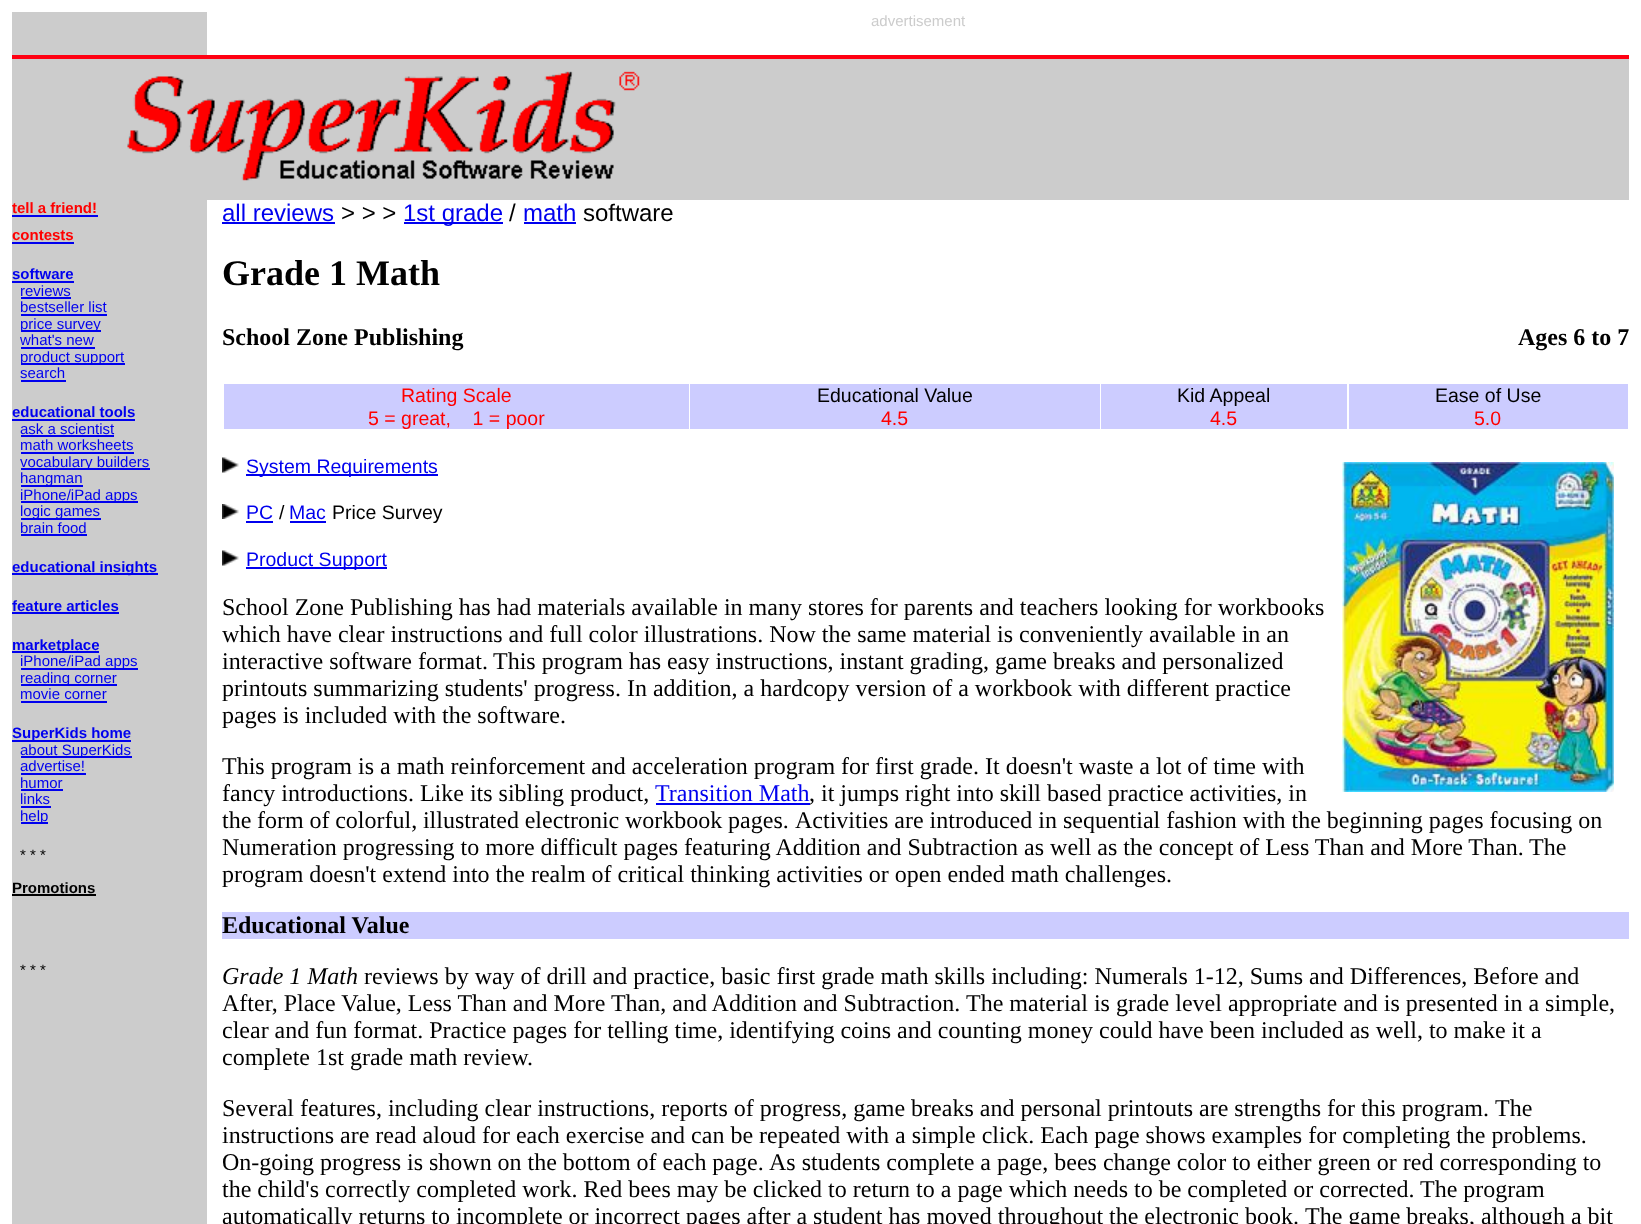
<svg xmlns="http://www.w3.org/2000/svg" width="1641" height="1224">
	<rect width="100%" height="100%" fill="#FFFFFF" />
	<rect x="12" y="12" width="195" height="43" fill="#CCCCCC" />
	<text x="871" y="26" font-family="Liberation Sans" font-size="15" fill="#CCCCCC">advertisement</text>
	<rect x="12" y="55" width="1617" height="4" fill="#FF0012" />
	<rect x="12" y="59" width="1617" height="141" fill="#CCCCCC" />
	<image x="127" y="71" width="513" height="110" href="assets/img1.png" />
	<rect x="12" y="200" width="195" height="1024" fill="#CCCCCC" />
	<text x="12" y="213" font-family="Liberation Sans" font-size="15" font-weight="700" fill="#FF0000">tell a friend!</text>
	<rect x="12" y="215" width="86" height="2" fill="#0000EE" />
	<text x="12" y="240" font-family="Liberation Sans" font-size="15" font-weight="700" fill="#FF0000">contests</text>
	<rect x="12" y="242" width="62" height="2" fill="#0000EE" />
	<text x="12" y="279" font-family="Liberation Sans" font-size="15" font-weight="700" fill="#0000EE">software</text>
	<rect x="12" y="281" width="62" height="2" fill="#0000EE" />
	<text x="20" y="296" font-family="Liberation Sans" font-size="15" fill="#0000EE">reviews</text>
	<rect x="21" y="297" width="50" height="2" fill="#0000EE" />
	<text x="20" y="312" font-family="Liberation Sans" font-size="15" fill="#0000EE">bestseller list</text>
	<rect x="21" y="314" width="86" height="2" fill="#0000EE" />
	<rect x="21" y="330" width="80" height="2" fill="#0000EE" />
	<g font-family="Liberation Sans" font-size="15" fill="#0000EE">
		<text x="20" y="329">price survey</text>
		<text x="20" y="345">what's new</text>
	</g>
	<rect x="21" y="347" width="74" height="2" fill="#0000EE" />
	<rect x="21" y="363" width="104" height="2" fill="#0000EE" />
	<g font-family="Liberation Sans" font-size="15" fill="#0000EE">
		<text x="20" y="362">product support</text>
		<text x="20" y="378">search</text>
	</g>
	<rect x="21" y="380" width="45" height="2" fill="#0000EE" />
	<text x="12" y="417" font-family="Liberation Sans" font-size="15" font-weight="700" fill="#0000EE">educational tools</text>
	<rect x="12" y="419" width="123" height="2" fill="#0000EE" />
	<text x="20" y="434" font-family="Liberation Sans" font-size="15" fill="#0000EE">ask a scientist</text>
	<rect x="21" y="435" width="93" height="2" fill="#0000EE" />
	<text x="20" y="450" font-family="Liberation Sans" font-size="15" fill="#0000EE">math worksheets</text>
	<rect x="21" y="452" width="113" height="2" fill="#0000EE" />
	<rect x="21" y="468" width="129" height="2" fill="#0000EE" />
	<text x="20" y="467" font-family="Liberation Sans" font-size="15" fill="#0000EE">vocabulary builders</text>
	<rect x="21" y="485" width="62" height="2" fill="#0000EE" />
	<text x="20" y="483" font-family="Liberation Sans" font-size="15" fill="#0000EE">hangman</text>
	<rect x="21" y="501" width="117" height="2" fill="#0000EE" />
	<text x="20" y="500" font-family="Liberation Sans" font-size="15" fill="#0000EE">iPhone/iPad apps</text>
	<rect x="21" y="518" width="80" height="2" fill="#0000EE" />
	<g font-family="Liberation Sans" font-size="15" fill="#0000EE">
		<text x="20" y="516">logic games</text>
		<text x="20" y="533">brain food</text>
	</g>
	<rect x="21" y="534" width="66" height="2" fill="#0000EE" />
	<rect x="12" y="573" width="146" height="2" fill="#0000EE" />
	<g font-family="Liberation Sans" font-size="15" font-weight="700" fill="#0000EE">
		<text x="12" y="572">educational insights</text>
		<text x="12" y="611">feature articles</text>
	</g>
	<rect x="12" y="612" width="107" height="2" fill="#0000EE" />
	<rect x="12" y="651" width="87" height="2" fill="#0000EE" />
	<text x="12" y="650" font-family="Liberation Sans" font-size="15" font-weight="700" fill="#0000EE">marketplace</text>
	<rect x="21" y="668" width="117" height="2" fill="#0000EE" />
	<text x="20" y="666" font-family="Liberation Sans" font-size="15" fill="#0000EE">iPhone/iPad apps</text>
	<rect x="21" y="684" width="96" height="2" fill="#0000EE" />
	<g font-family="Liberation Sans" font-size="15" fill="#0000EE">
		<text x="20" y="683">reading corner</text>
		<text x="20" y="699">movie corner</text>
	</g>
	<rect x="21" y="701" width="86" height="2" fill="#0000EE" />
	<rect x="12" y="740" width="119" height="2" fill="#0000EE" />
	<text x="12" y="738" font-family="Liberation Sans" font-size="15" font-weight="700" fill="#0000EE">SuperKids home</text>
	<rect x="21" y="756" width="111" height="2" fill="#0000EE" />
	<g font-family="Liberation Sans" font-size="15" fill="#0000EE">
		<text x="20" y="755">about SuperKids</text>
		<text x="20" y="771">advertise!</text>
	</g>
	<rect x="21" y="773" width="65" height="2" fill="#0000EE" />
	<text x="20" y="788" font-family="Liberation Sans" font-size="15" fill="#0000EE">humor</text>
	<rect x="21" y="789" width="42" height="2" fill="#0000EE" />
	<text x="20" y="804" font-family="Liberation Sans" font-size="15" fill="#0000EE">links</text>
	<rect x="21" y="806" width="30" height="2" fill="#0000EE" />
	<rect x="21" y="822" width="27" height="2" fill="#0000EE" />
	<text x="20" y="821" font-family="Liberation Sans" font-size="15" fill="#0000EE">help</text>
	<text x="20" y="860" font-family="Liberation Sans" font-size="15" fill="#000000">* * *</text>
	<text x="12" y="893" font-family="Liberation Sans" font-size="15" font-weight="700" fill="#000000">Promotions</text>
	<rect x="12" y="894" width="84" height="2" fill="#000000" />
	<text x="20" y="975" font-family="Liberation Sans" font-size="15" fill="#000000">* * *</text>
	<text x="222" y="221" font-family="Liberation Sans" font-size="24" fill="#0000EE">all reviews</text>
	<rect x="222" y="222" width="113" height="2" fill="#0000EE" />
	<text x="341" y="221" font-family="Liberation Sans" font-size="24" fill="#000000">&gt; &gt; &gt;</text>
	<rect x="404" y="222" width="99" height="2" fill="#0000EE" />
	<text x="403" y="221" font-family="Liberation Sans" font-size="24" fill="#0000EE">1st grade</text>
	<text x="509" y="221" font-family="Liberation Sans" font-size="24" fill="#000000">/</text>
	<text x="523" y="221" font-family="Liberation Sans" font-size="24" fill="#0000EE">math</text>
	<rect x="524" y="222" width="52" height="2" fill="#0000EE" />
	<text x="583" y="221" font-family="Liberation Sans" font-size="24" fill="#000000">software</text>
	<text x="222" y="285" font-family="Liberation Serif" font-size="36" font-weight="700" fill="#000000">Grade 1 Math</text>
	<g font-family="Liberation Serif" font-size="24" font-weight="700" fill="#000000">
		<text x="222" y="345">School Zone Publishing</text>
		<text x="1518" y="345">Ages 6 to 7</text>
	</g>
	<rect x="224" y="384" width="465" height="45" fill="#CCCCFF" />
	<g font-family="Liberation Sans" font-size="19.5" fill="#FF0000">
		<text x="401" y="402">Rating Scale</text>
		<text x="368" y="425" xml:space="preserve">5 = great,    1 = poor</text>
	</g>
	<rect x="690" y="384" width="410" height="45" fill="#CCCCFF" />
	<text x="817" y="402" font-family="Liberation Sans" font-size="19.5" fill="#000000">Educational Value</text>
	<text x="881" y="425" font-family="Liberation Sans" font-size="19.5" fill="#FF0000">4.5</text>
	<rect x="1101" y="384" width="246" height="45" fill="#CCCCFF" />
	<text x="1177" y="402" font-family="Liberation Sans" font-size="19.5" fill="#000000">Kid Appeal</text>
	<text x="1210" y="425" font-family="Liberation Sans" font-size="19.5" fill="#FF0000">4.5</text>
	<rect x="1349" y="384" width="279" height="45" fill="#CCCCFF" />
	<text x="1435" y="402" font-family="Liberation Sans" font-size="19.5" fill="#000000">Ease of Use</text>
	<text x="1474" y="425" font-family="Liberation Sans" font-size="19.5" fill="#FF0000">5.0</text>
	<image x="222" y="457" width="17" height="16" href="assets/img2.png" />
	<rect x="246" y="474" width="192" height="2" fill="#0000EE" />
	<text x="246" y="473" font-family="Liberation Sans" font-size="19.5" fill="#0000EE">System Requirements</text>
	<image x="1342" y="462" width="272" height="330" href="assets/img3.png" />
	<image x="222" y="504" width="17" height="15" href="assets/img4.png" />
	<text x="246" y="519" font-family="Liberation Sans" font-size="19.5" fill="#0000EE">PC</text>
	<rect x="246" y="521" width="27" height="2" fill="#0000EE" />
	<text x="279" y="519" font-family="Liberation Sans" font-size="19.5" fill="#000000">/</text>
	<text x="289" y="519" font-family="Liberation Sans" font-size="19.5" fill="#0000EE">Mac</text>
	<rect x="290" y="521" width="36" height="2" fill="#0000EE" />
	<text x="332" y="519" font-family="Liberation Sans" font-size="19.5" fill="#000000">Price Survey</text>
	<image x="222" y="550" width="17" height="16" href="assets/img2.png" />
	<rect x="246" y="567" width="141" height="2" fill="#0000EE" />
	<text x="246" y="566" font-family="Liberation Sans" font-size="19.5" fill="#0000EE">Product Support</text>
	<g font-family="Liberation Serif" font-size="24" fill="#000000">
		<text x="222" y="615">School Zone Publishing has had materials available in many stores for parents and teachers looking for workbooks</text>
		<text x="222" y="642">which have clear instructions and full color illustrations. Now the same material is conveniently available in an</text>
		<text x="222" y="669">interactive software format.</text>
		<text x="493" y="669">This program has easy instructions, instant grading, game breaks and personalized</text>
		<text x="222" y="696">printouts summarizing students' progress. In addition, a hardcopy version of a workbook with different practice</text>
		<text x="222" y="723">pages is included with the software.</text>
		<text x="222" y="774">This program is a math reinforcement and acceleration program for first grade. It doesn't waste a lot of time with</text>
		<text x="222" y="801">fancy introductions. Like its sibling product,</text>
	</g>
	<text x="655" y="801" font-family="Liberation Serif" font-size="24" fill="#0000EE">Transition Math</text>
	<rect x="656" y="803" width="154" height="2" fill="#0000EE" />
	<g font-family="Liberation Serif" font-size="24" fill="#000000">
		<text x="809" y="801">, it jumps right into skill based practice activities, in</text>
		<text x="222" y="828" word-spacing="-0.25">the form of colorful, illustrated electronic workbook pages.</text>
		<text x="795" y="828">Activities are introduced in sequential fashion with the beginning pages focusing on</text>
		<text x="222" y="855">Numeration progressing to more difficult pages featuring Addition and Subtraction as well as the concept of Less Than and More Than.</text>
		<text x="1529" y="855">The</text>
		<text x="222" y="882">program doesn't extend into the realm of critical thinking activities or open ended math challenges.</text>
	</g>
	<rect x="222" y="912" width="1407" height="27" fill="#CCCCFF" />
	<text x="222" y="933" font-family="Liberation Serif" font-size="24" font-weight="700" fill="#000000">Educational Value</text>
	<text x="222" y="984" font-family="Liberation Serif" font-size="24" font-style="italic" fill="#000000">Grade 1 Math</text>
	<g font-family="Liberation Serif" font-size="24" fill="#000000">
		<text x="364" y="984">reviews by way of drill and practice, basic first grade math skills including: Numerals 1-12, Sums and Differences, Before and</text>
		<text x="222" y="1011">After, Place Value, Less Than and More Than, and Addition and Subtraction.</text>
		<text x="966" y="1011">The material is grade level appropriate and is presented in a simple,</text>
		<text x="222" y="1038">clear and fun format. Practice pages for telling time, identifying coins and counting money could have been included as well, to make it a</text>
		<text x="222" y="1065">complete 1st grade math review.</text>
		<text x="222" y="1116">Several features, including clear instructions, reports of progress, game breaks and personal printouts are strengths for this program.</text>
		<text x="1495" y="1116">The</text>
		<text x="222" y="1143">instructions are read aloud for each exercise and can be repeated with a simple click. Each page shows examples for completing the problems.</text>
		<text x="222" y="1170" word-spacing="-0.1">On-going progress is shown on the bottom of each page.</text>
		<text x="769" y="1170">As students complete a page, bees change color to either green or red corresponding to</text>
		<text x="222" y="1197">the child's correctly completed work. Red bees may be clicked to return to a page which needs to be completed or corrected.</text>
		<text x="1420" y="1197">The program</text>
		<text x="222" y="1224">automatically returns to incomplete or incorrect pages after a student has moved throughout the electronic book.</text>
		<text x="1305" y="1224">The game breaks, although a bit</text>
	</g>
</svg>
